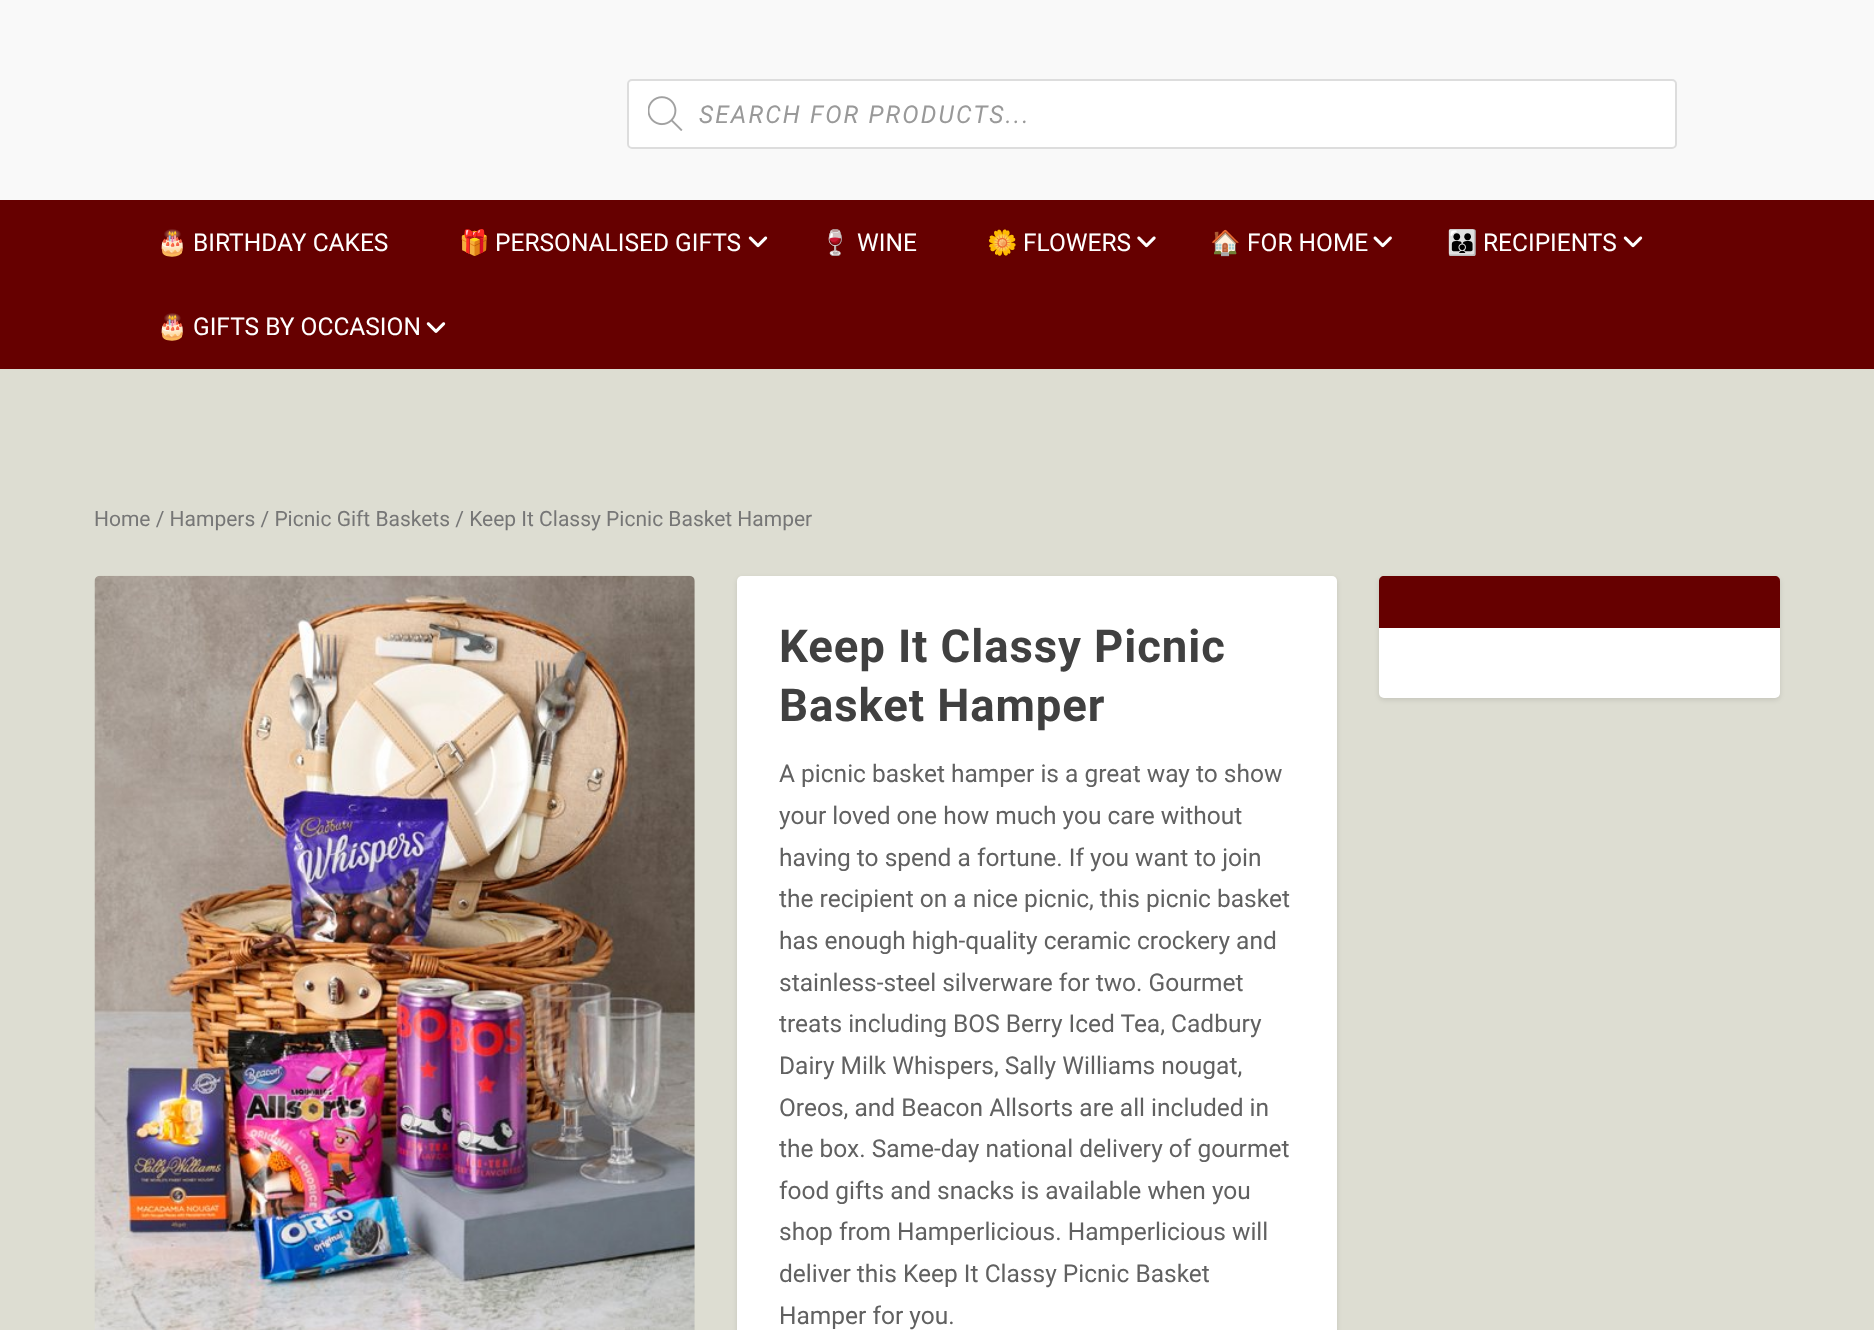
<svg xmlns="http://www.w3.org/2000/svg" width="1874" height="1330">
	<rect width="100%" height="100%" fill="#DDDDD2" />
	<rect x="0" y="0" width="1874" height="200" fill="#F9F9F9" />
	<rect x="628" y="80" width="1048" height="68" rx="4" fill="#FFFFFF" stroke="#DDDDDD" stroke-width="2" />
	<image x="648" y="96" width="35" height="35" href="assets/img1.png" />
	<text x="699" y="123" font-family="Roboto" font-size="24.5" font-style="italic" letter-spacing="2.1" fill="#999999">SEARCH FOR PRODUCTS...</text>
	<rect x="0" y="200" width="1874" height="169" fill="#660000" />
	<text x="157" y="251" font-family="Noto Color Emoji" font-size="24.5" fill="#FFFFFF">🎂</text>
	<text x="193" y="251" font-family="Roboto" font-size="24.5" fill="#FFFFFF">BIRTHDAY CAKES</text>
	<text x="459" y="251" font-family="Noto Color Emoji" font-size="24.5" fill="#FFFFFF">🎁</text>
	<text x="495" y="251" font-family="Roboto" font-size="24.5" fill="#FFFFFF">PERSONALISED GIFTS</text>
	<image x="748" y="236" width="20" height="12" href="assets/img2.png" />
	<text x="820" y="251" font-family="Noto Color Emoji" font-size="24.5" fill="#FFFFFF">🍷</text>
	<text x="857" y="251" font-family="Roboto" font-size="24.5" fill="#FFFFFF">WINE</text>
	<text x="987" y="251" font-family="Noto Color Emoji" font-size="24.5" fill="#FFFFFF">🌼</text>
	<text x="1023" y="251" font-family="Roboto" font-size="24.5" fill="#FFFFFF">FLOWERS</text>
	<image x="1137" y="236" width="19" height="12" href="assets/img3.png" />
	<text x="1210" y="251" font-family="Noto Color Emoji" font-size="24.5" fill="#FFFFFF">🏠</text>
	<text x="1247" y="251" font-family="Roboto" font-size="24.5" fill="#FFFFFF">FOR HOME</text>
	<image x="1373" y="236" width="19" height="12" href="assets/img4.png" />
	<text x="1447" y="251" font-family="Noto Color Emoji" font-size="24.5" fill="#FFFFFF">👪</text>
	<text x="1483" y="251" font-family="Roboto" font-size="24.5" fill="#FFFFFF">RECIPIENTS</text>
	<image x="1623" y="236" width="20" height="12" href="assets/img2.png" />
	<text x="157" y="335" font-family="Noto Color Emoji" font-size="24.5" fill="#FFFFFF">🎂</text>
	<text x="193" y="335" font-family="Roboto" font-size="24.5" fill="#FFFFFF">GIFTS BY OCCASION</text>
	<image x="426" y="322" width="20" height="11" href="assets/img5.png" />
	<text x="94" y="526" font-family="Roboto" font-size="21" fill="#767676">Home / Hampers / Picnic Gift Baskets / Keep It Classy Picnic Basket Hamper</text>
	<image x="94" y="575" width="601" height="755" href="assets/img6.png" />
	<rect x="737" y="578" width="600" height="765" rx="5" fill="#000000" fill-opacity="0.1" filter="blur(2.5px)" />
	<rect x="737" y="576" width="600" height="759" rx="5" fill="#FFFFFF" />
	<g font-family="Roboto" font-size="45.5" font-weight="700" letter-spacing="0.9" fill="#404040">
		<text x="779" y="662">Keep It Classy Picnic</text>
		<text x="779" y="721">Basket Hamper</text>
	</g>
	<g font-family="Roboto" font-size="24.5" fill="#616161">
		<text x="779" y="782">A picnic basket hamper is a great way to show</text>
		<text x="779" y="824">your loved one how much you care without</text>
		<text x="779" y="866">having to spend a fortune. If you want to join</text>
		<text x="779" y="907">the recipient on a nice picnic, this picnic basket</text>
		<text x="779" y="949">has enough high-quality ceramic crockery and</text>
		<text x="779" y="991">stainless-steel silverware for two. Gourmet</text>
		<text x="779" y="1032">treats including BOS Berry Iced Tea, Cadbury</text>
		<text x="779" y="1074">Dairy Milk Whispers, Sally Williams nougat,</text>
		<text x="779" y="1116">Oreos, and Beacon Allsorts are all included in</text>
		<text x="779" y="1157">the box. Same-day national delivery of gourmet</text>
		<text x="779" y="1199">food gifts and snacks is available when you</text>
		<text x="779" y="1240">shop from Hamperlicious. Hamperlicious will</text>
		<text x="779" y="1282">deliver this Keep It Classy Picnic Basket</text>
		<text x="779" y="1324">Hamper for you.</text>
	</g>
	<rect x="1379" y="578" width="401" height="122" rx="5" fill="#000000" fill-opacity="0.1" filter="blur(2.5px)" />
	<rect x="1379" y="576" width="401" height="122" rx="5" fill="#FFFFFF" />
	<path d="M1384 576H1775C1778 576 1780 578 1780 581V628H1379V581C1379 578 1381 576 1384 576Z" fill="#660000" />
</svg>
